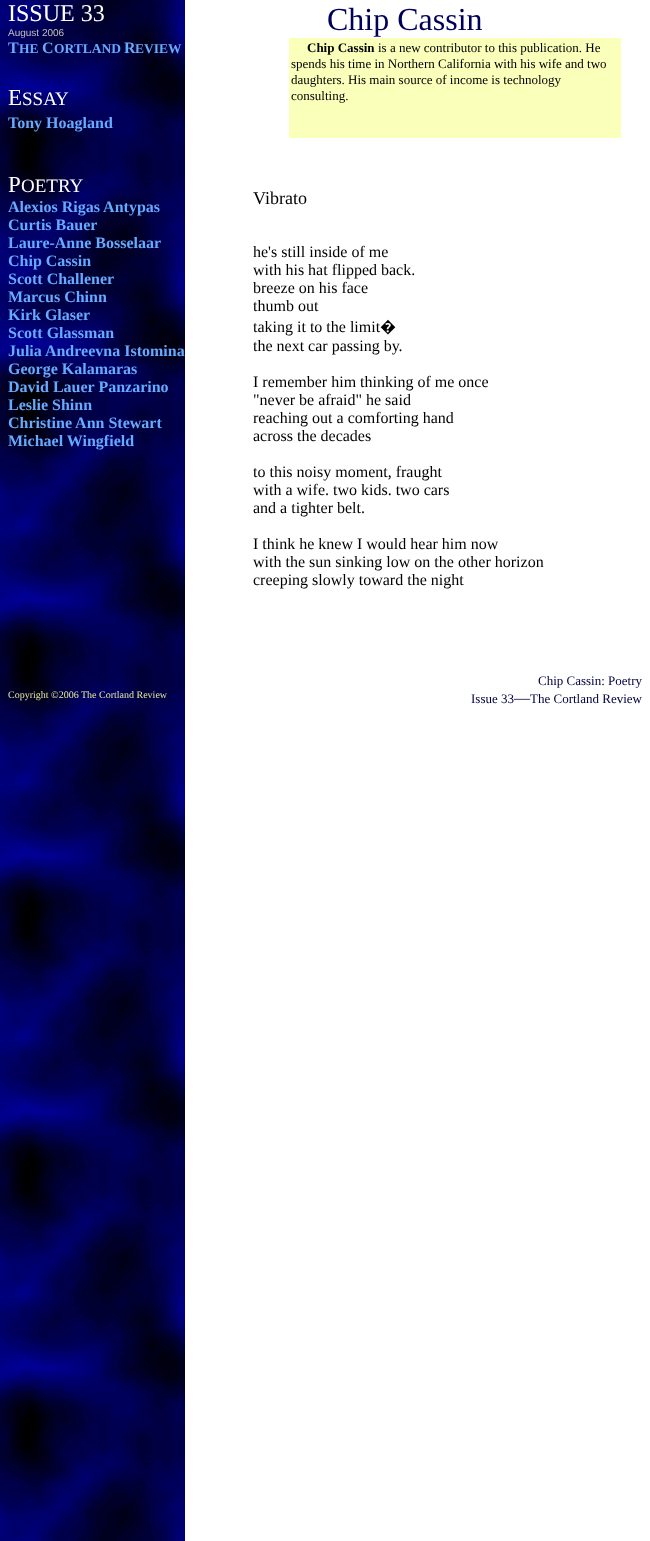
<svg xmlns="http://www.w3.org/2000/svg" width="650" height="1541">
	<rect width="100%" height="100%" fill="#FFFFFF" />
	<image x="0" y="0" width="185" height="1541" href="assets/img1.png" />
	<text x="8" y="21" font-family="Liberation Serif" font-size="24" fill="#FFFFFF">ISSUE 33</text>
	<text x="8" y="36" font-family="Liberation Sans" font-size="10" fill="#C0C0C0">August 2006</text>
	<text x="327" y="30" font-family="Liberation Serif" font-size="32" fill="#00005B">Chip Cassin</text>
	<text x="8" y="53" font-family="Liberation Serif" font-size="16" font-weight="700" fill="#66AAFF">T</text>
	<text x="19" y="53" font-family="Liberation Serif" font-size="13.5" font-weight="700" fill="#66AAFF">HE</text>
	<text x="42" y="53" font-family="Liberation Serif" font-size="16" font-weight="700" fill="#66AAFF">C</text>
	<text x="54" y="53" font-family="Liberation Serif" font-size="13.5" font-weight="700" fill="#66AAFF">ORTLAND</text>
	<text x="124" y="53" font-family="Liberation Serif" font-size="16" font-weight="700" fill="#66AAFF">R</text>
	<text x="135" y="53" font-family="Liberation Serif" font-size="13.5" font-weight="700" fill="#66AAFF">EVIEW</text>
	<text x="8" y="105" font-family="Liberation Serif" font-size="23" fill="#FFFFFF">E</text>
	<text x="22" y="105" font-family="Liberation Serif" font-size="19" fill="#FFFFFF">SSAY</text>
	<text x="8" y="128" font-family="Liberation Serif" font-size="16" font-weight="700" fill="#66AAFF">Tony Hoagland</text>
	<text x="8" y="192" font-family="Liberation Serif" font-size="23" fill="#FFFFFF">P</text>
	<text x="21" y="192" font-family="Liberation Serif" font-size="19" fill="#FFFFFF">OETRY</text>
	<g font-family="Liberation Serif" font-size="16" font-weight="700" fill="#66AAFF">
		<text x="8" y="212">Alexios Rigas Antypas</text>
		<text x="8" y="230">Curtis Bauer</text>
		<text x="8" y="248">Laure-Anne Bosselaar</text>
		<text x="8" y="266">Chip Cassin</text>
		<text x="8" y="284">Scott Challener</text>
		<text x="8" y="302">Marcus Chinn</text>
		<text x="8" y="320">Kirk Glaser</text>
		<text x="8" y="338">Scott Glassman</text>
		<text x="8" y="356">Julia Andreevna Istomina</text>
		<text x="8" y="374">George Kalamaras</text>
		<text x="8" y="392">David Lauer Panzarino</text>
		<text x="8" y="410">Leslie Shinn</text>
		<text x="8" y="428">Christine Ann Stewart</text>
		<text x="8" y="446">Michael Wingfield</text>
	</g>
	<rect x="289" y="38" width="332" height="100" fill="#FAFFB9" />
	<text x="307" y="52" font-family="Liberation Serif" font-size="13" font-weight="700" fill="#000000">Chip Cassin</text>
	<g font-family="Liberation Serif" font-size="13" fill="#000000">
		<text x="378" y="52">is a new contributor to this publication. He</text>
		<text x="291" y="68">spends his time in Northern California with his wife and two</text>
		<text x="291" y="84">daughters. His main source of income is technology</text>
		<text x="291" y="100">consulting.</text>
	</g>
	<text x="253" y="204" font-family="Liberation Serif" font-size="18" fill="#000000">Vibrato</text>
	<g font-family="Liberation Serif" font-size="16" fill="#000000">
		<text x="253" y="257">he's still inside of me</text>
		<text x="253" y="275">with his hat flipped back.</text>
		<text x="253" y="293">breeze on his face</text>
		<text x="253" y="311">thumb out</text>
		<text x="253" y="332">taking it to the limit</text>
	</g>
	<text x="380" y="332" font-family="Noto Sans" font-size="16" fill="#000000">�</text>
	<g font-family="Liberation Serif" font-size="16" fill="#000000">
		<text x="253" y="351">the next car passing by.</text>
		<text x="253" y="387">I remember him thinking of me once</text>
		<text x="253" y="405">"never be afraid" he said</text>
		<text x="253" y="423">reaching out a comforting hand</text>
		<text x="253" y="441">across the decades</text>
		<text x="253" y="477">to this noisy moment, fraught</text>
		<text x="253" y="495">with a wife. two kids. two cars</text>
		<text x="253" y="513">and a tighter belt.</text>
		<text x="253" y="549">I think he knew I would hear him now</text>
		<text x="253" y="567">with the sun sinking low on the other horizon</text>
		<text x="253" y="585">creeping slowly toward the night</text>
	</g>
	<text x="538" y="685" font-family="Liberation Serif" font-size="13" fill="#000040">Chip Cassin: Poetry</text>
	<text x="8" y="698" font-family="Liberation Serif" font-size="10" fill="#E4E79A">Copyright ©2006 The Cortland Review</text>
	<text x="471" y="703" font-family="Liberation Serif" font-size="13" fill="#000040">Issue 33</text>
	<text x="514" y="703" font-family="Liberation Serif" font-size="16" fill="#000040">—</text>
	<text x="530" y="703" font-family="Liberation Serif" font-size="13" fill="#000040">The Cortland Review</text>
</svg>
